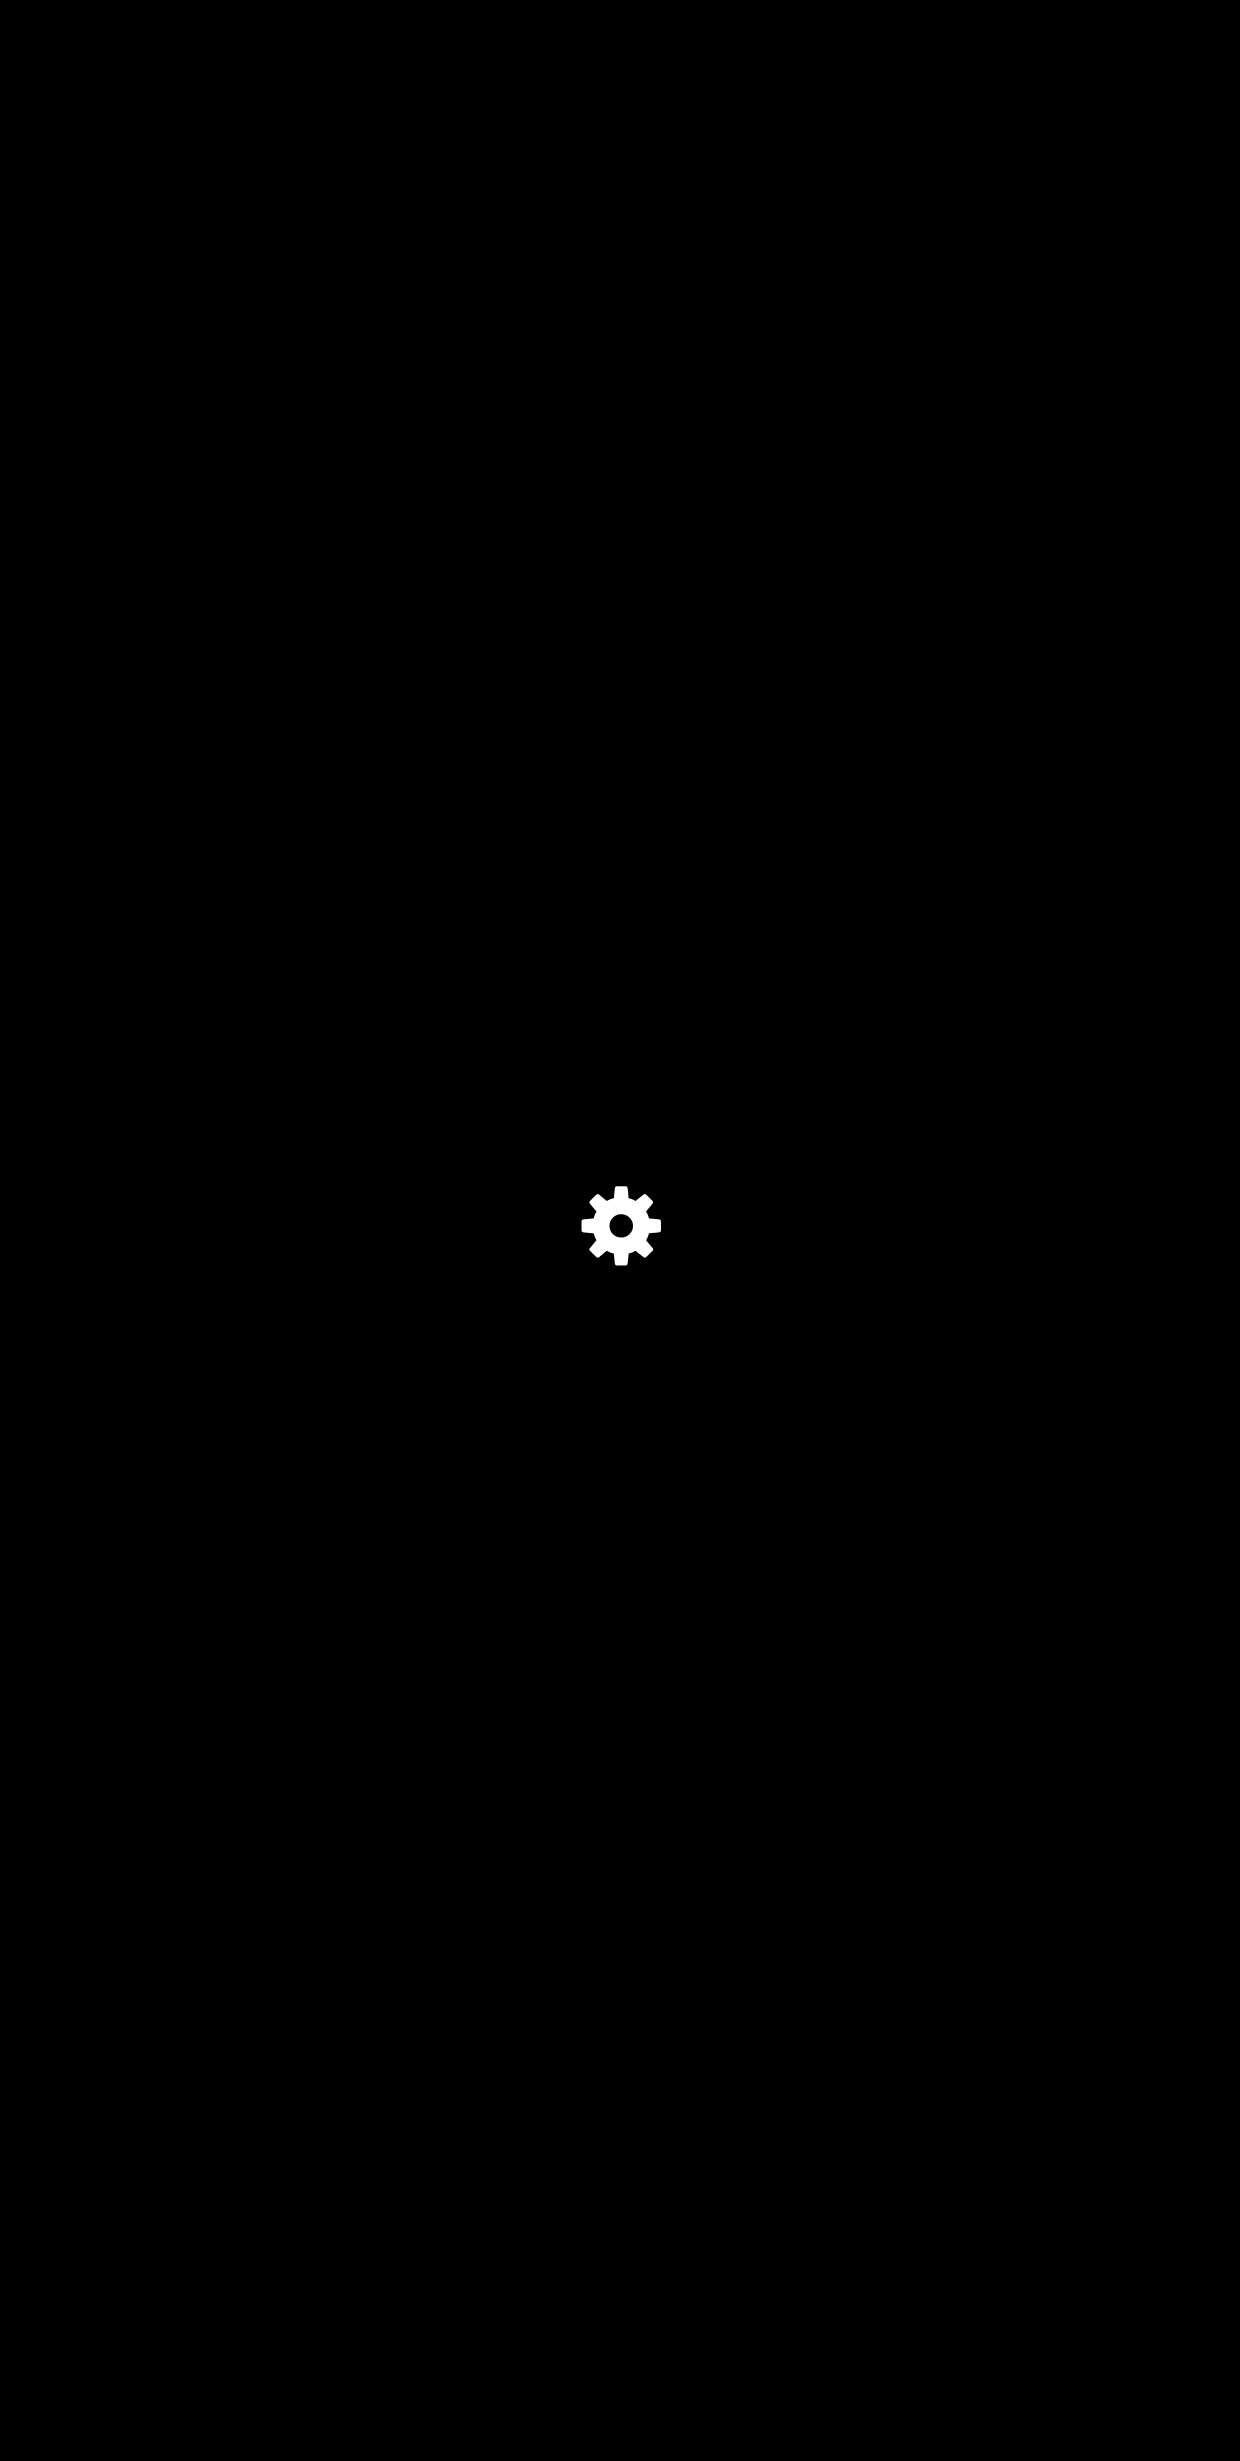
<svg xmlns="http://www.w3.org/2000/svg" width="1240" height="2461">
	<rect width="100%" height="100%" fill="#000000" />
	<image x="581" y="1186" width="80" height="80" href="assets/img1.png" />
</svg>
